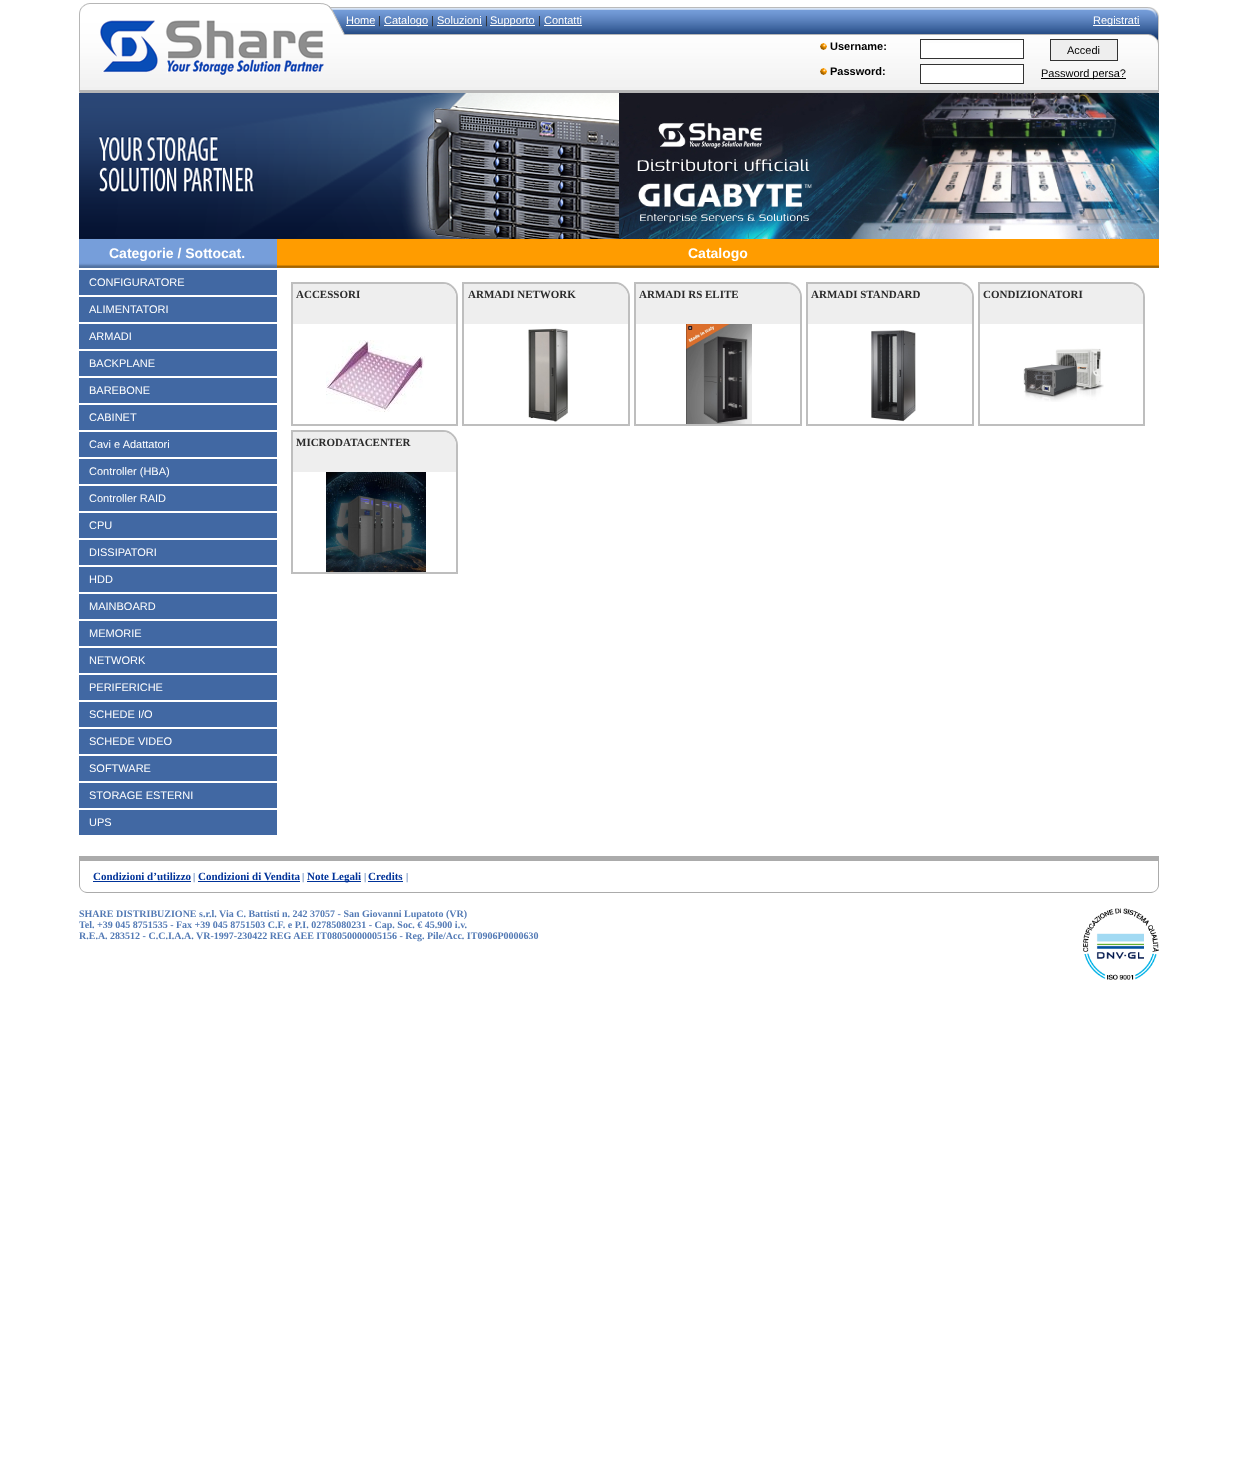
<svg xmlns="http://www.w3.org/2000/svg" width="1237" height="1458">
	<rect width="100%" height="100%" fill="#FFFFFF" />
	<image x="79" y="3" width="267" height="90" href="assets/img1.png" />
	<image x="100" y="20" width="224" height="56" href="assets/img2.png" />
	<image x="346" y="7" width="794" height="27" href="assets/img3.png" />
	<text x="346" y="24" font-family="Liberation Sans" font-size="11" fill="#FFFFFF">Home</text>
	<rect x="346" y="25" width="29" height="1" fill="#FFFFFF" />
	<text x="378" y="24" font-family="Liberation Sans" font-size="11" fill="#2A2A2A">|</text>
	<rect x="384" y="25" width="44" height="1" fill="#FFFFFF" />
	<text x="384" y="24" font-family="Liberation Sans" font-size="11" fill="#FFFFFF">Catalogo</text>
	<text x="431" y="24" font-family="Liberation Sans" font-size="11" fill="#2A2A2A">|</text>
	<text x="437" y="24" font-family="Liberation Sans" font-size="11" fill="#FFFFFF">Soluzioni</text>
	<rect x="437" y="25" width="45" height="1" fill="#FFFFFF" />
	<text x="485" y="24" font-family="Liberation Sans" font-size="11" fill="#2A2A2A">|</text>
	<rect x="490" y="25" width="45" height="1" fill="#FFFFFF" />
	<text x="490" y="24" font-family="Liberation Sans" font-size="11" fill="#FFFFFF">Supporto</text>
	<text x="538" y="24" font-family="Liberation Sans" font-size="11" fill="#2A2A2A">|</text>
	<text x="544" y="24" font-family="Liberation Sans" font-size="11" fill="#FFFFFF">Contatti</text>
	<rect x="544" y="25" width="38" height="1" fill="#FFFFFF" />
	<rect x="1093" y="25" width="47" height="1" fill="#FFFFFF" />
	<text x="1093" y="24" font-family="Liberation Sans" font-size="11" fill="#FFFFFF">Registrati</text>
	<image x="1140" y="7" width="19" height="27" href="assets/img4.png" />
	<image x="346" y="34" width="794" height="59" href="assets/img5.png" />
	<image x="820" y="43" width="7" height="7" href="assets/img6.png" />
	<text x="830" y="50" font-family="Liberation Sans" font-size="11" font-weight="700" fill="#000000">Username:</text>
	<rect x="921" y="43" width="102" height="15" fill="#FFFFFF" />
	<rect x="920.5" y="39.5" width="103" height="19" fill="none" stroke="#333333" />
	<image x="820" y="68" width="7" height="7" href="assets/img7.png" />
	<text x="830" y="75" font-family="Liberation Sans" font-size="11" font-weight="700" fill="#000000">Password:</text>
	<rect x="920.5" y="64.5" width="103" height="19" fill="#FFFFFF" stroke="#333333" />
	<rect x="1050.5" y="39.5" width="67" height="21" fill="#EEEEEE" stroke="#333333" />
	<text x="1067" y="54" font-family="Liberation Sans" font-size="11" fill="#000000">Accedi</text>
	<rect x="1041" y="78" width="85" height="1" fill="#000000" />
	<text x="1041" y="77" font-family="Liberation Sans" font-size="11" fill="#000000">Password persa?</text>
	<image x="1140" y="34" width="19" height="59" href="assets/img8.png" />
	<image x="79" y="93" width="540" height="146" href="assets/img9.png" />
	<image x="619" y="93" width="540" height="146" href="assets/img10.png" />
	<image x="79" y="239" width="198" height="29" href="assets/img11.png" />
	<text x="109" y="258" font-family="Liberation Sans" font-size="14" font-weight="700" fill="#FFFFFF">Categorie / Sottocat.</text>
	<image x="277" y="239" width="882" height="29" href="assets/img12.png" />
	<text x="688" y="258" font-family="Liberation Sans" font-size="14" font-weight="700" fill="#FFFFFF">Catalogo</text>
	<rect x="79" y="270" width="198" height="565" fill="#4168A3" />
	<rect x="79" y="295" width="198" height="2" fill="#FFFFFF" />
	<text x="89" y="286" font-family="Liberation Sans" font-size="11" fill="#FFFFFF">CONFIGURATORE</text>
	<rect x="79" y="322" width="198" height="2" fill="#FFFFFF" />
	<text x="89" y="313" font-family="Liberation Sans" font-size="11" fill="#FFFFFF">ALIMENTATORI</text>
	<rect x="79" y="349" width="198" height="2" fill="#FFFFFF" />
	<text x="89" y="340" font-family="Liberation Sans" font-size="11" fill="#FFFFFF">ARMADI</text>
	<rect x="79" y="376" width="198" height="2" fill="#FFFFFF" />
	<text x="89" y="367" font-family="Liberation Sans" font-size="11" fill="#FFFFFF">BACKPLANE</text>
	<rect x="79" y="403" width="198" height="2" fill="#FFFFFF" />
	<text x="89" y="394" font-family="Liberation Sans" font-size="11" fill="#FFFFFF">BAREBONE</text>
	<rect x="79" y="430" width="198" height="2" fill="#FFFFFF" />
	<text x="89" y="421" font-family="Liberation Sans" font-size="11" fill="#FFFFFF">CABINET</text>
	<rect x="79" y="457" width="198" height="2" fill="#FFFFFF" />
	<text x="89" y="448" font-family="Liberation Sans" font-size="11" fill="#FFFFFF">Cavi e Adattatori</text>
	<rect x="79" y="484" width="198" height="2" fill="#FFFFFF" />
	<text x="89" y="475" font-family="Liberation Sans" font-size="11" fill="#FFFFFF">Controller (HBA)</text>
	<rect x="79" y="511" width="198" height="2" fill="#FFFFFF" />
	<text x="89" y="502" font-family="Liberation Sans" font-size="11" fill="#FFFFFF">Controller RAID</text>
	<rect x="79" y="538" width="198" height="2" fill="#FFFFFF" />
	<text x="89" y="529" font-family="Liberation Sans" font-size="11" fill="#FFFFFF">CPU</text>
	<rect x="79" y="565" width="198" height="2" fill="#FFFFFF" />
	<text x="89" y="556" font-family="Liberation Sans" font-size="11" fill="#FFFFFF">DISSIPATORI</text>
	<rect x="79" y="592" width="198" height="2" fill="#FFFFFF" />
	<text x="89" y="583" font-family="Liberation Sans" font-size="11" fill="#FFFFFF">HDD</text>
	<rect x="79" y="619" width="198" height="2" fill="#FFFFFF" />
	<text x="89" y="610" font-family="Liberation Sans" font-size="11" fill="#FFFFFF">MAINBOARD</text>
	<rect x="79" y="646" width="198" height="2" fill="#FFFFFF" />
	<text x="89" y="637" font-family="Liberation Sans" font-size="11" fill="#FFFFFF">MEMORIE</text>
	<rect x="79" y="673" width="198" height="2" fill="#FFFFFF" />
	<text x="89" y="664" font-family="Liberation Sans" font-size="11" fill="#FFFFFF">NETWORK</text>
	<rect x="79" y="700" width="198" height="2" fill="#FFFFFF" />
	<text x="89" y="691" font-family="Liberation Sans" font-size="11" fill="#FFFFFF">PERIFERICHE</text>
	<rect x="79" y="727" width="198" height="2" fill="#FFFFFF" />
	<text x="89" y="718" font-family="Liberation Sans" font-size="11" fill="#FFFFFF">SCHEDE I/O</text>
	<rect x="79" y="754" width="198" height="2" fill="#FFFFFF" />
	<text x="89" y="745" font-family="Liberation Sans" font-size="11" fill="#FFFFFF">SCHEDE VIDEO</text>
	<rect x="79" y="781" width="198" height="2" fill="#FFFFFF" />
	<text x="89" y="772" font-family="Liberation Sans" font-size="11" fill="#FFFFFF">SOFTWARE</text>
	<rect x="79" y="808" width="198" height="2" fill="#FFFFFF" />
	<g font-family="Liberation Sans" font-size="11" fill="#FFFFFF">
		<text x="89" y="799">STORAGE ESTERNI</text>
		<text x="89" y="826">UPS</text>
	</g>
	<path d="M292 283H443C450.5 283 457 289.5 457 297V425H292Z" fill="none" stroke="#BEBEBE" stroke-width="2" />
	<path d="M293 284H443C450 284 456 290 456 297V324H293Z" fill="#EEEEEE" />
	<text x="296" y="298" font-family="Liberation Serif" font-size="11" font-weight="700" fill="#2A2A2A">ACCESSORI</text>
	<image x="326" y="340" width="99" height="72" href="assets/img13.png" />
	<path d="M463 283H615C622.5 283 629 289.5 629 297V425H463Z" fill="none" stroke="#BEBEBE" stroke-width="2" />
	<path d="M464 284H615C622 284 628 290 628 297V324H464Z" fill="#EEEEEE" />
	<text x="468" y="298" font-family="Liberation Serif" font-size="11" font-weight="700" fill="#2A2A2A">ARMADI NETWORK</text>
	<image x="528" y="328" width="40" height="94" href="assets/img14.png" />
	<path d="M635 283H787C794.5 283 801 289.5 801 297V425H635Z" fill="none" stroke="#BEBEBE" stroke-width="2" />
	<path d="M636 284H787C794 284 800 290 800 297V324H636Z" fill="#EEEEEE" />
	<text x="639" y="298" font-family="Liberation Serif" font-size="11" font-weight="700" fill="#2A2A2A">ARMADI RS ELITE</text>
	<image x="686" y="324" width="66" height="100" href="assets/img15.png" />
	<path d="M807 283H959C966.5 283 973 289.5 973 297V425H807Z" fill="none" stroke="#BEBEBE" stroke-width="2" />
	<path d="M808 284H959C966 284 972 290 972 297V324H808Z" fill="#EEEEEE" />
	<text x="811" y="298" font-family="Liberation Serif" font-size="11" font-weight="700" fill="#2A2A2A">ARMADI STANDARD</text>
	<image x="871" y="330" width="45" height="92" href="assets/img16.png" />
	<path d="M979 283H1130C1137.5 283 1144 289.5 1144 297V425H979Z" fill="none" stroke="#BEBEBE" stroke-width="2" />
	<path d="M980 284H1130C1137 284 1143 290 1143 297V324H980Z" fill="#EEEEEE" />
	<text x="983" y="298" font-family="Liberation Serif" font-size="11" font-weight="700" fill="#2A2A2A">CONDIZIONATORI</text>
	<image x="1023" y="348" width="81" height="54" href="assets/img17.png" />
	<path d="M292 431H443C450.5 431 457 437.5 457 445V573H292Z" fill="none" stroke="#BEBEBE" stroke-width="2" />
	<path d="M293 432H443C450 432 456 438 456 445V472H293Z" fill="#EEEEEE" />
	<text x="296" y="446" font-family="Liberation Serif" font-size="11" font-weight="700" fill="#2A2A2A">MICRODATACENTER</text>
	<image x="326" y="472" width="100" height="100" href="assets/img18.png" />
	<path d="M79 856H619V893H87C83 893 79 889 79 885ZM80 861H619V892H87C83 892 80 889 80 885Z" fill="#ABABAB" fill-rule="evenodd" />
	<text x="93" y="880" font-family="Liberation Serif" font-size="11" font-weight="700" fill="#003399">Condizioni d’utilizzo</text>
	<rect x="93" y="881" width="98" height="1" fill="#003399" />
	<text x="193" y="880" font-family="Liberation Serif" font-size="10" font-weight="700" fill="#537AB5">|</text>
	<text x="198" y="880" font-family="Liberation Serif" font-size="11" font-weight="700" fill="#003399">Condizioni di Vendita</text>
	<rect x="198" y="881" width="102" height="1" fill="#003399" />
	<text x="302" y="880" font-family="Liberation Serif" font-size="10" font-weight="700" fill="#537AB5">|</text>
	<rect x="307" y="881" width="54" height="1" fill="#003399" />
	<text x="307" y="880" font-family="Liberation Serif" font-size="11" font-weight="700" fill="#003399">Note Legali</text>
	<text x="364" y="880" font-family="Liberation Serif" font-size="10" font-weight="700" fill="#537AB5">|</text>
	<text x="368" y="880" font-family="Liberation Serif" font-size="11" font-weight="700" fill="#003399">Credits</text>
	<rect x="368" y="881" width="35" height="1" fill="#003399" />
	<text x="406" y="880" font-family="Liberation Serif" font-size="10" font-weight="700" fill="#537AB5">|</text>
	<path d="M619 856H1159V885C1159 889 1155 893 1151 893H619ZM619 861H1158V885C1158 889 1155 892 1151 892H619Z" fill="#ABABAB" fill-rule="evenodd" />
	<g font-family="Liberation Serif" font-size="10" font-weight="700" fill="#537AB5">
		<text x="79" y="917">SHARE DISTRIBUZIONE s.r.l. Via C. Battisti n. 242 37057 - San Giovanni Lupatoto (VR)</text>
		<text x="79" y="928">Tel. +39 045 8751535 - Fax +39 045 8751503 C.F. e P.I. 02785080231 - Cap. Soc. € 45.900 i.v.</text>
		<text x="79" y="939">R.E.A. 283512 - C.C.I.A.A. VR-1997-230422 REG AEE IT08050000005156 - Reg. Pile/Acc. IT0906P0000630</text>
	</g>
	<image x="1083" y="908" width="76" height="72" href="assets/img19.png" />
</svg>
